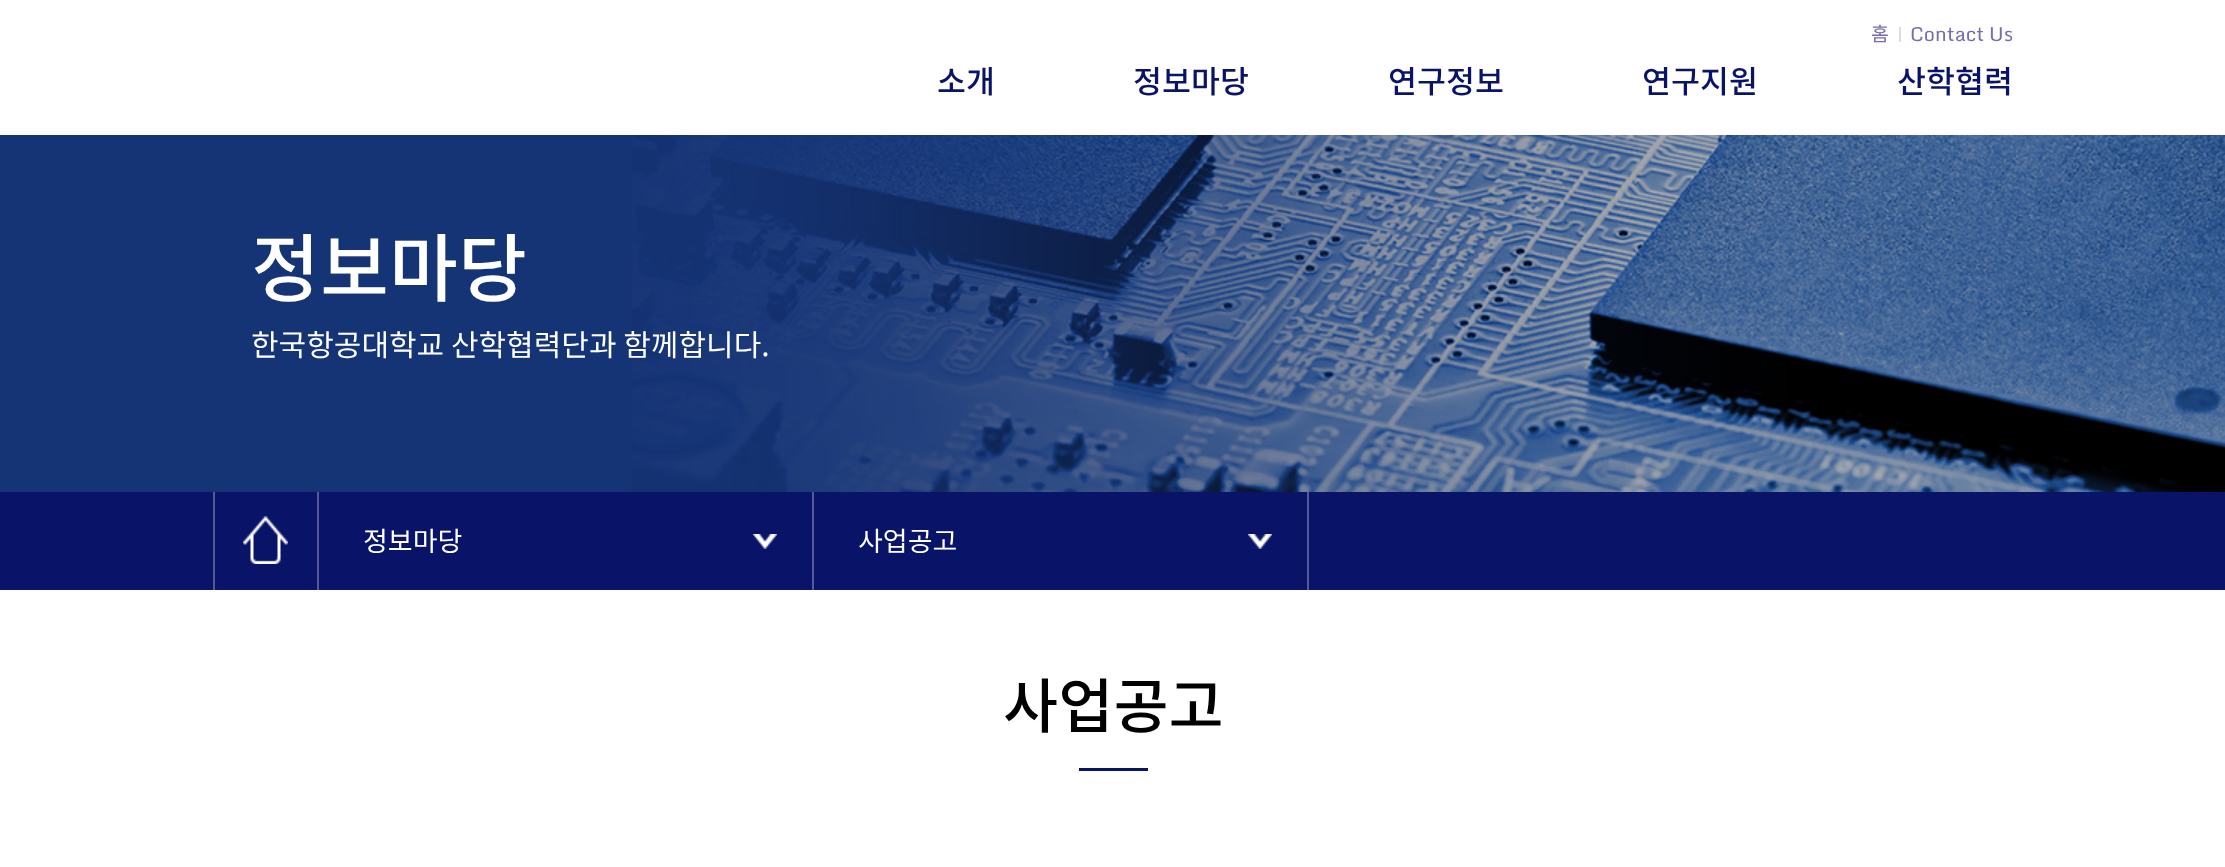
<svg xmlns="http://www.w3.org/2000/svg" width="2225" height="867">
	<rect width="100%" height="100%" fill="#FFFFFF" />
	<text x="1871" y="41" font-family="Noto Sans KR" font-size="19.5" fill="#756DAC">홈</text>
	<rect x="1899" y="27" width="2" height="15" fill="#DDDDDD" />
	<text x="1910" y="41" font-family="Monda" font-size="19.5" fill="#756DAC">Contact Us</text>
	<g font-family="Noto Sans KR" font-size="31.5" font-weight="500" fill="#091368">
		<text x="937" y="93">소개</text>
		<text x="1133" y="93">정보마당</text>
		<text x="1388" y="93">연구정보</text>
		<text x="1642" y="93">연구지원</text>
		<text x="1897" y="93">산학협력</text>
	</g>
	<image x="0" y="135" width="2225" height="357" href="assets/img1.png" />
	<text x="251" y="296" font-family="Noto Sans KR" font-size="75" font-weight="500" fill="#FFFFFF">정보마당</text>
	<text x="251" y="356" font-family="Noto Sans KR" font-size="30" fill="#FFFFFF">한국항공대학교 산학협력단과 함께합니다.</text>
	<rect x="0" y="492" width="2225" height="98" fill="#091368" />
	<rect x="317" y="492" width="2" height="98" fill="#535A96" />
	<rect x="213" y="492" width="2" height="98" fill="#535A96" />
	<image x="243" y="516" width="45" height="48" href="assets/img2.png" />
	<rect x="812" y="492" width="2" height="98" fill="#535A96" />
	<text x="363" y="551" font-family="Noto Sans KR" font-size="27" fill="#FFFFFF">정보마당</text>
	<image x="753" y="534" width="24" height="15" href="assets/img3.png" />
	<rect x="1307" y="492" width="2" height="98" fill="#535A96" />
	<text x="858" y="551" font-family="Noto Sans KR" font-size="27" fill="#FFFFFF">사업공고</text>
	<image x="1248" y="534" width="24" height="15" href="assets/img4.png" />
	<text x="1003" y="728" font-family="Noto Sans KR" font-size="60" font-weight="500" fill="#000000">사업공고</text>
	<rect x="1079" y="768" width="69" height="3" fill="#091368" />
</svg>
